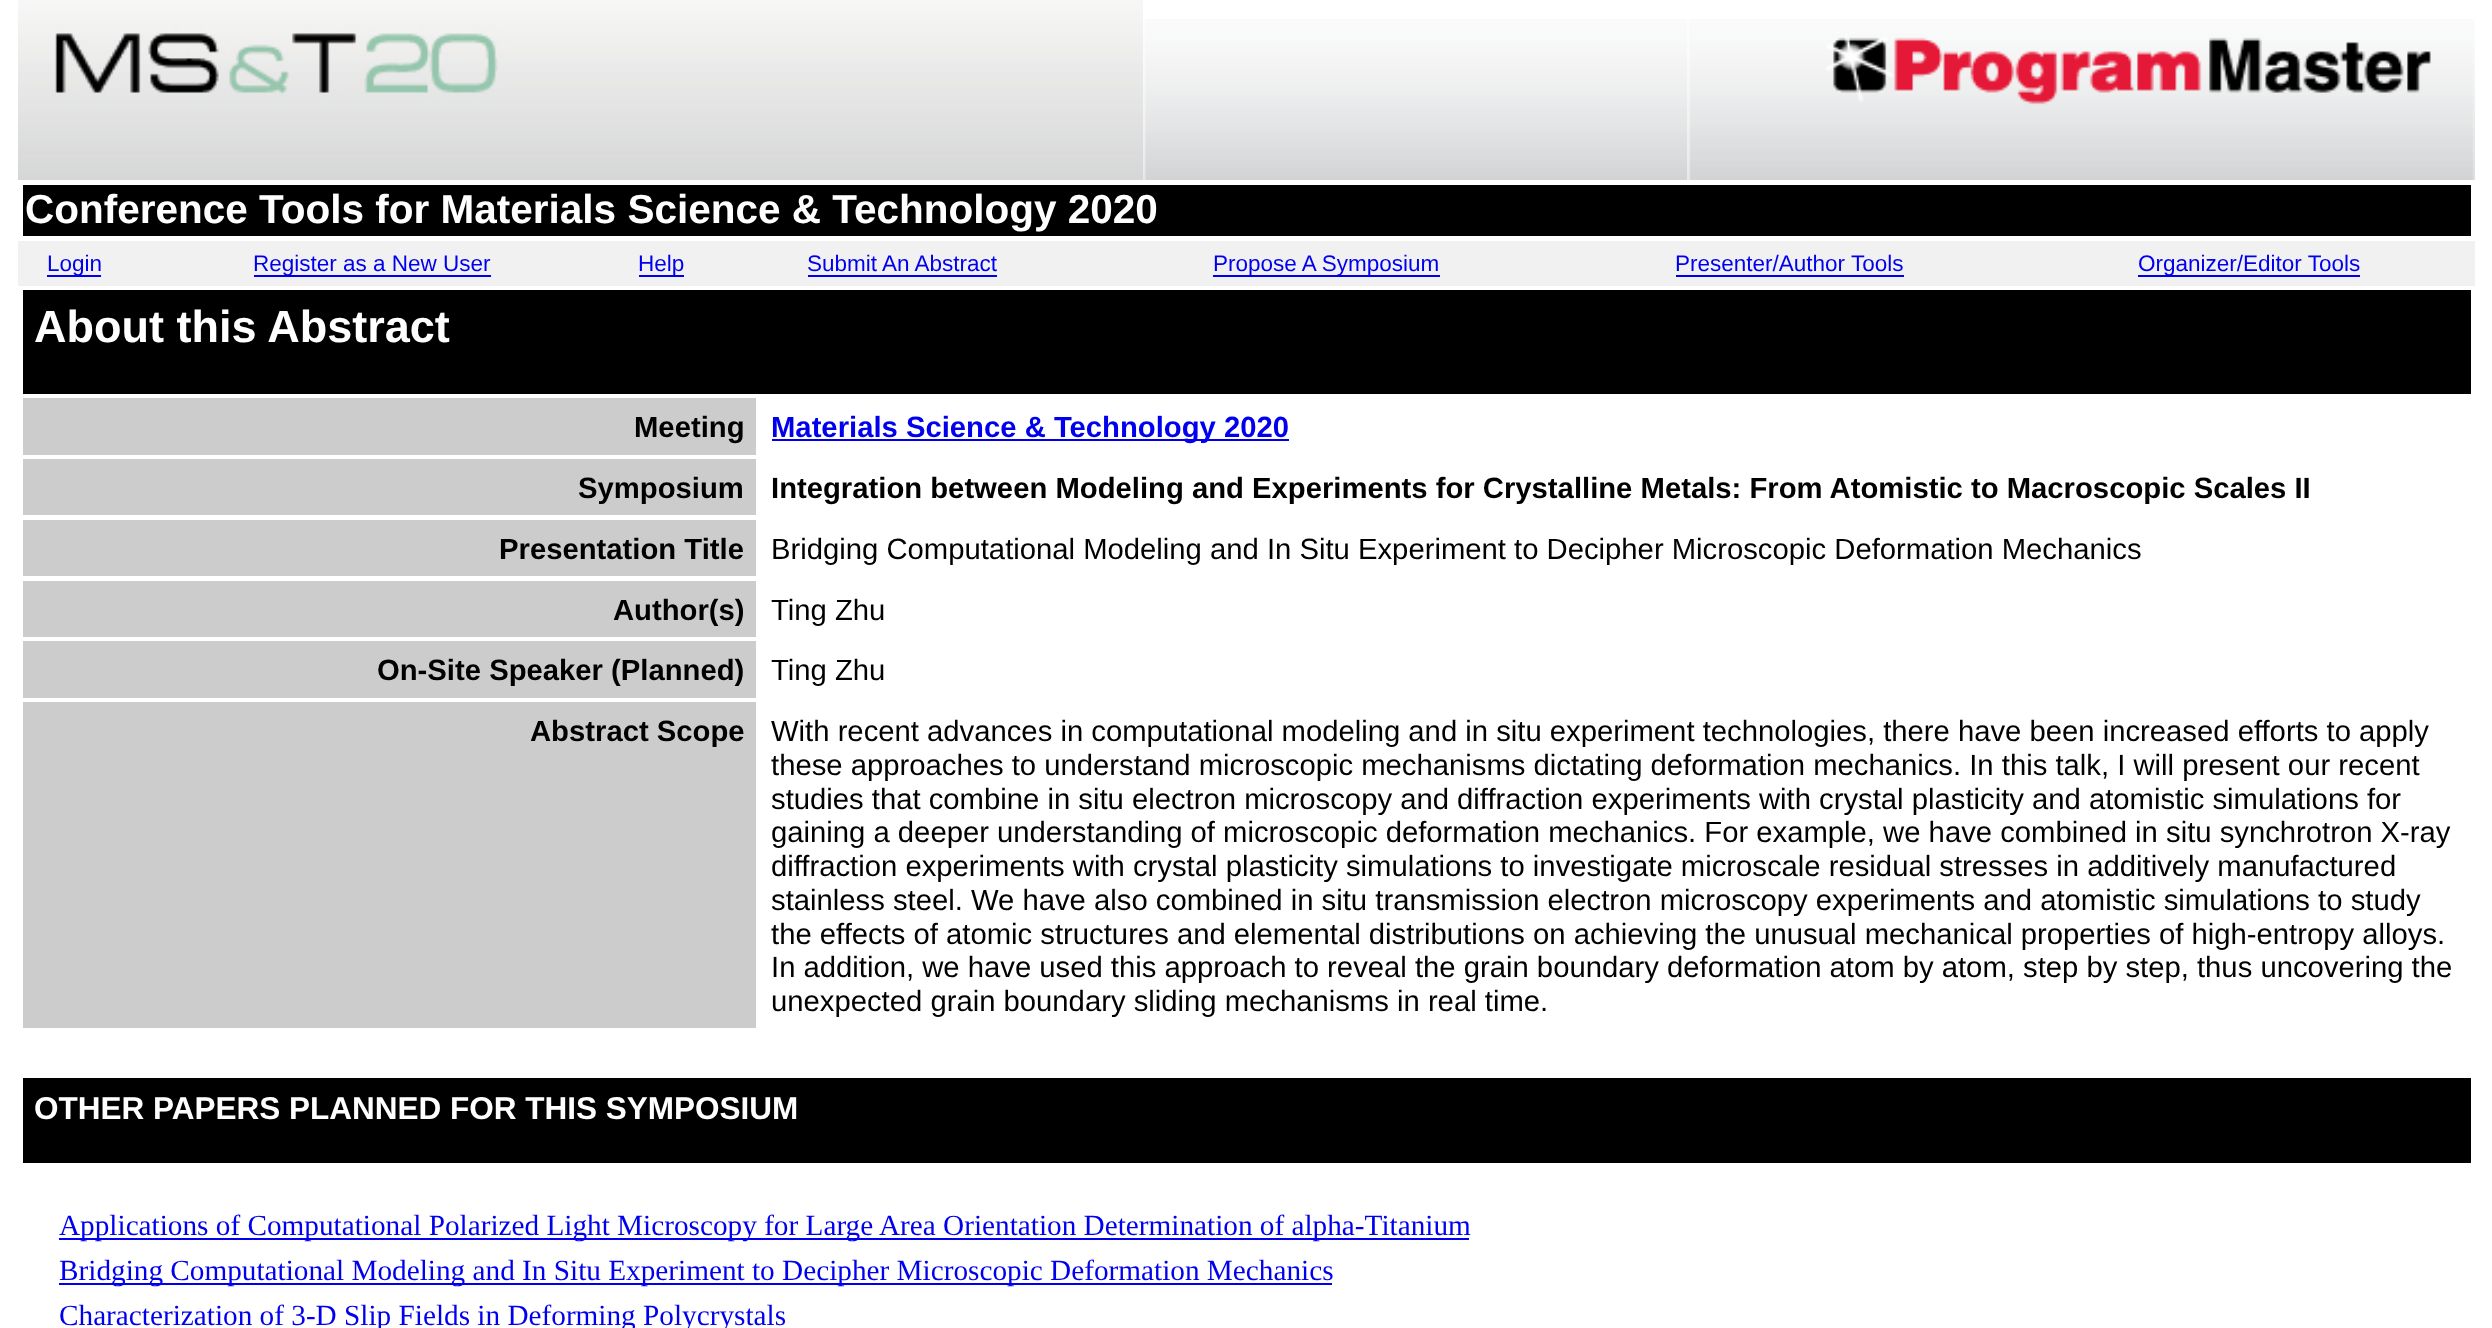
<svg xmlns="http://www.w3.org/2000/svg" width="2492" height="1328">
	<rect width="100%" height="100%" fill="#FFFFFF" />
	<image x="18" y="0" width="1125" height="180" href="assets/img1.png" />
	<image x="1143" y="19" width="545" height="161" href="assets/img2.png" />
	<image x="1688" y="19" width="787" height="161" href="assets/img3.png" />
	<rect x="23" y="185" width="2448" height="51" fill="#000000" />
	<text x="25" y="223" font-family="Liberation Sans" font-size="40.5" font-weight="700" fill="#FFFFFF">Conference Tools for Materials Science &amp; Technology 2020</text>
	<rect x="18" y="241" width="2457" height="45" fill="#F1F1F1" />
	<rect x="47" y="275" width="54" height="2" fill="#0000EE" />
	<text x="47" y="271" font-family="Liberation Sans" font-size="22.5" fill="#0000EE">Login</text>
	<rect x="254" y="275" width="237" height="2" fill="#0000EE" />
	<text x="253" y="271" font-family="Liberation Sans" font-size="22.5" fill="#0000EE">Register as a New User</text>
	<rect x="639" y="275" width="45" height="2" fill="#0000EE" />
	<g font-family="Liberation Sans" font-size="22.5" fill="#0000EE">
		<text x="638" y="271">Help</text>
		<text x="807" y="271">Submit An Abstract</text>
	</g>
	<rect x="808" y="275" width="189" height="2" fill="#0000EE" />
	<rect x="1213" y="275" width="227" height="2" fill="#0000EE" />
	<g font-family="Liberation Sans" font-size="22.5" fill="#0000EE">
		<text x="1213" y="271">Propose A Symposium</text>
		<text x="1675" y="271">Presenter/Author Tools</text>
	</g>
	<rect x="1676" y="275" width="228" height="2" fill="#0000EE" />
	<rect x="2138" y="275" width="222" height="2" fill="#0000EE" />
	<text x="2138" y="271" font-family="Liberation Sans" font-size="22.5" fill="#0000EE">Organizer/Editor Tools</text>
	<rect x="23" y="290" width="2448" height="104" fill="#000000" />
	<text x="34" y="342" font-family="Liberation Sans" font-size="45" font-weight="700" fill="#FFFFFF">About this Abstract</text>
	<rect x="23" y="398" width="733" height="57" fill="#CCCCCC" />
	<text x="634" y="437" font-family="Liberation Sans" font-size="29.25" font-weight="700" fill="#000000">Meeting</text>
	<rect x="772" y="439" width="517" height="2" fill="#0000EE" />
	<text x="771" y="437" font-family="Liberation Sans" font-size="29.25" font-weight="700" fill="#0000EE">Materials Science &amp; Technology 2020</text>
	<rect x="23" y="459" width="733" height="56" fill="#CCCCCC" />
	<g font-family="Liberation Sans" font-size="29.25" font-weight="700" fill="#000000">
		<text x="578" y="498">Symposium</text>
		<text x="771" y="498">Integration between Modeling and Experiments for Crystalline Metals: From Atomistic to Macroscopic Scales II</text>
	</g>
	<rect x="23" y="520" width="733" height="56" fill="#CCCCCC" />
	<text x="499" y="559" font-family="Liberation Sans" font-size="29.25" font-weight="700" fill="#000000">Presentation Title</text>
	<text x="771" y="559" font-family="Liberation Sans" font-size="29.25" fill="#000000">Bridging Computational Modeling and In Situ Experiment to Decipher Microscopic Deformation Mechanics</text>
	<rect x="23" y="581" width="733" height="56" fill="#CCCCCC" />
	<text x="613" y="620" font-family="Liberation Sans" font-size="29.25" font-weight="700" fill="#000000">Author(s)</text>
	<text x="771" y="620" font-family="Liberation Sans" font-size="29.25" fill="#000000">Ting Zhu</text>
	<rect x="23" y="641" width="733" height="57" fill="#CCCCCC" />
	<text x="377" y="680" font-family="Liberation Sans" font-size="29.25" font-weight="700" fill="#000000">On-Site Speaker (Planned)</text>
	<text x="771" y="680" font-family="Liberation Sans" font-size="29.25" fill="#000000">Ting Zhu</text>
	<rect x="23" y="702" width="733" height="326" fill="#CCCCCC" />
	<text x="530" y="741" font-family="Liberation Sans" font-size="29.25" font-weight="700" fill="#000000">Abstract Scope</text>
	<g font-family="Liberation Sans" font-size="29.25" fill="#000000">
		<text x="771" y="741">With recent advances in computational modeling and in situ experiment technologies, there have been increased efforts to apply</text>
		<text x="771" y="775">these approaches to understand microscopic mechanisms dictating deformation mechanics. In this talk, I will present our recent</text>
		<text x="771" y="809">studies that combine in situ electron microscopy and diffraction experiments with crystal plasticity and atomistic simulations for</text>
		<text x="771" y="842">gaining a deeper understanding of microscopic deformation mechanics. For example, we have combined in situ synchrotron X-ray</text>
		<text x="771" y="876">diffraction experiments with crystal plasticity simulations to investigate microscale residual stresses in additively manufactured</text>
		<text x="771" y="910">stainless steel. We have also combined in situ transmission electron microscopy experiments and atomistic simulations to study</text>
		<text x="771" y="944">the effects of atomic structures and elemental distributions on achieving the unusual mechanical properties of high-entropy alloys.</text>
		<text x="771" y="977">In addition, we have used this approach to reveal the grain boundary deformation atom by atom, step by step, thus uncovering the</text>
		<text x="771" y="1011">unexpected grain boundary sliding mechanisms in real time.</text>
	</g>
	<rect x="23" y="1078" width="2448" height="85" fill="#000000" />
	<text x="34" y="1119" font-family="Liberation Sans" font-size="31.5" font-weight="700" fill="#FFFFFF">OTHER PAPERS PLANNED FOR THIS SYMPOSIUM</text>
	<rect x="59" y="1238" width="1410" height="2" fill="#0000EE" />
	<text x="59" y="1235" font-family="Liberation Serif" font-size="29.25" fill="#0000EE">Applications of Computational Polarized Light Microscopy for Large Area Orientation Determination of alpha-Titanium</text>
	<rect x="59" y="1283" width="1273" height="2" fill="#0000EE" />
	<g font-family="Liberation Serif" font-size="29.25" fill="#0000EE">
		<text x="59" y="1280">Bridging Computational Modeling and In Situ Experiment to Decipher Microscopic Deformation Mechanics</text>
		<text x="59" y="1325">Characterization of 3-D Slip Fields in Deforming Polycrystals</text>
	</g>
</svg>
